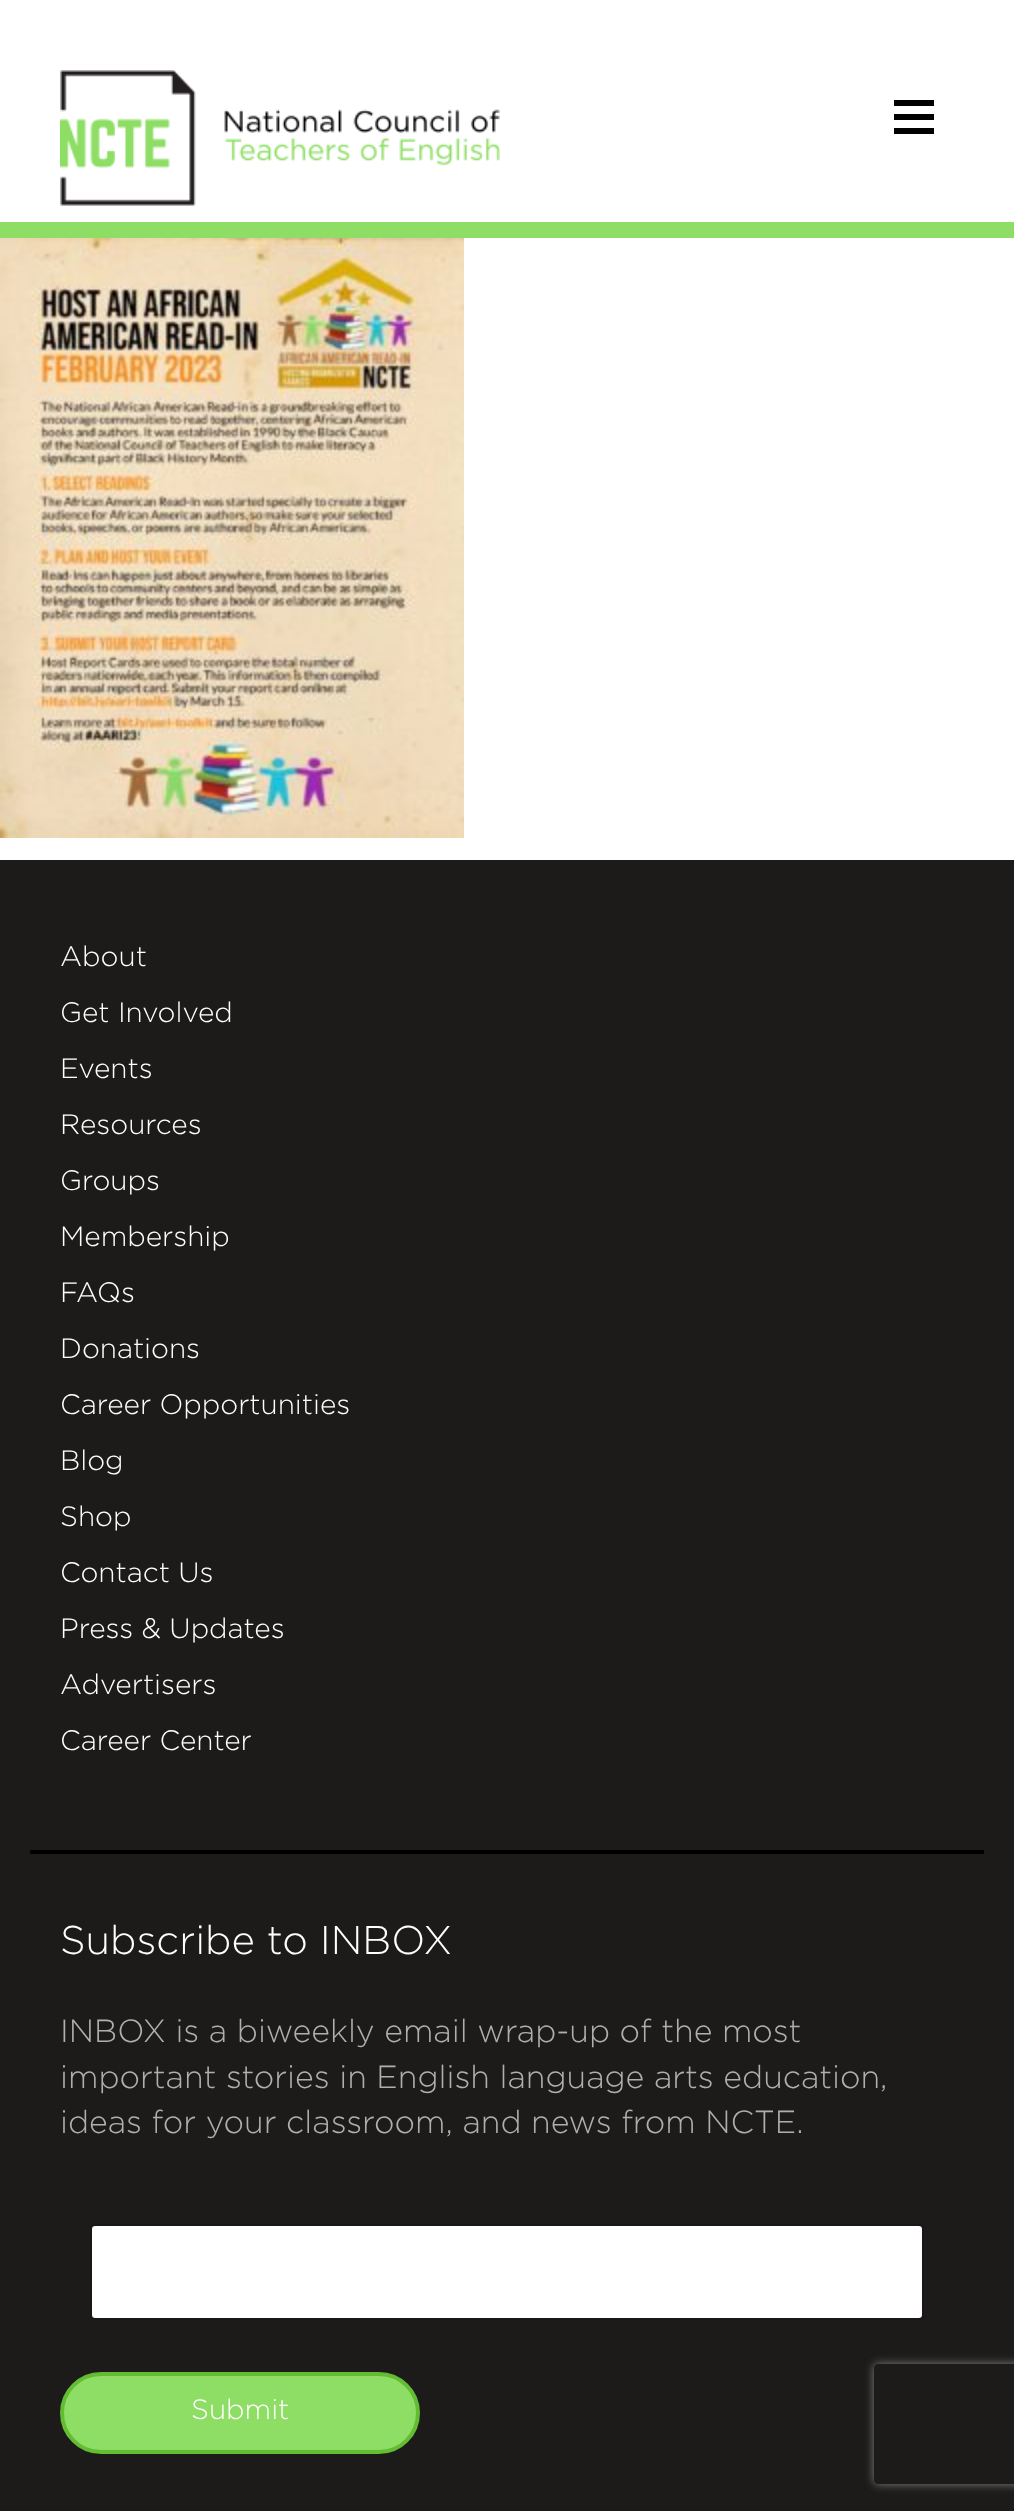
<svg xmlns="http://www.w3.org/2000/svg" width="1014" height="2511">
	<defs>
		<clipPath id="clip1"><path d="M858 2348H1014V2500H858ZM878 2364H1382C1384 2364 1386 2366 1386 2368V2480C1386 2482 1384 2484 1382 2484H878C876 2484 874 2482 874 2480V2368C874 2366 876 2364 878 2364Z" clip-rule="evenodd" /></clipPath>
	</defs>
	<rect width="100%" height="100%" fill="#FFFFFF" />
	<rect x="0" y="222" width="1014" height="16" fill="#8EDD65" />
	<image x="60" y="70" width="440" height="136" href="assets/img1.png" />
	<rect x="894" y="100" width="40" height="6" fill="#000000" />
	<rect x="894" y="114" width="40" height="6" fill="#000000" />
	<rect x="894" y="128" width="40" height="6" fill="#000000" />
	<image x="0" y="238" width="464" height="600" href="assets/img2.png" />
	<rect x="0" y="860" width="1014" height="1651" fill="#1D1A1A" />
	<g font-family="Gotham" font-size="28" font-weight="300" fill="#FFFFFF">
		<text x="60" y="966">About</text>
		<text x="60" y="1022">Get Involved</text>
		<text x="60" y="1078">Events</text>
		<text x="60" y="1134">Resources</text>
		<text x="60" y="1190">Groups</text>
		<text x="60" y="1246">Membership</text>
		<text x="60" y="1302">FAQs</text>
		<text x="60" y="1358">Donations</text>
		<text x="60" y="1414">Career Opportunities</text>
		<text x="60" y="1470">Blog</text>
		<text x="60" y="1526">Shop</text>
		<text x="60" y="1582">Contact Us</text>
		<text x="60" y="1638">Press &amp; Updates</text>
		<text x="60" y="1694">Advertisers</text>
		<text x="60" y="1750">Career Center</text>
	</g>
	<rect x="30" y="1850" width="954" height="4" fill="#000000" />
	<text x="60" y="1954" font-family="Gotham" font-size="40" font-weight="300" fill="#FFFFFF">Subscribe to INBOX</text>
	<g font-family="Gotham" font-size="32" font-weight="300" fill="#AFAFAF">
		<text x="60" y="2042">INBOX is a biweekly email wrap-up of the most</text>
		<text x="60" y="2088">important stories in English language arts education,</text>
		<text x="60" y="2133">ideas for your classroom, and news from NCTE.</text>
	</g>
	<rect x="92" y="2226" width="830" height="92" rx="3" fill="#FFFFFF" />
	<rect x="91" y="2225" width="832" height="94" rx="4" fill="none" stroke="#000000" stroke-opacity="0.15" stroke-width="2" />
	<rect x="62" y="2374" width="356" height="78" rx="39" fill="#8EDD65" stroke="#62BD33" stroke-width="4" />
	<text x="191" y="2419" font-family="Gotham" font-size="28" font-weight="300" fill="#FFFFFF">Submit</text>
	<g clip-path="url(#clip1)">
		<rect x="874" y="2364" width="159" height="120" rx="4" fill="#808080" filter="blur(5px)" />
	</g>
</svg>
